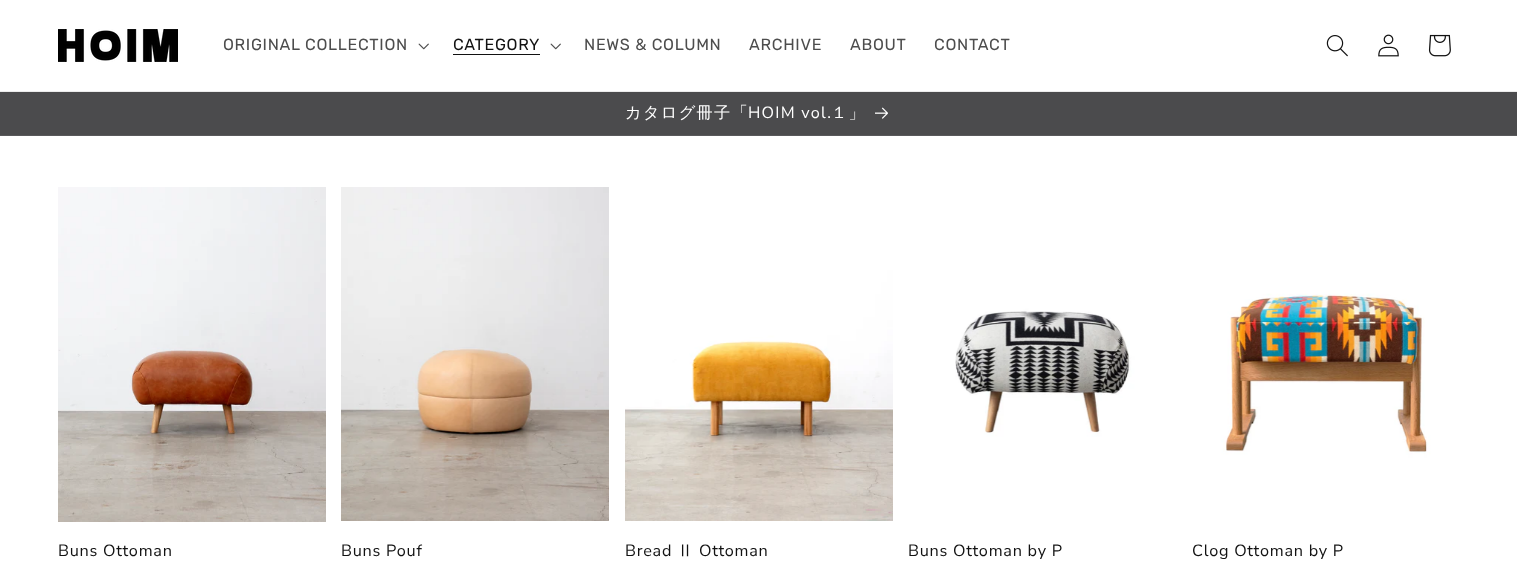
<svg xmlns="http://www.w3.org/2000/svg" width="1517" height="567">
	<rect width="100%" height="100%" fill="#FFFFFF" />
	<rect x="0" y="91" width="1517" height="1" fill="#ECECEC" />
	<image x="58" y="29" width="120" height="33" href="assets/img1.png" />
	<text x="223" y="50" font-family="Rubik" font-size="16.1" letter-spacing="0.7" fill="#4D4D4D">ORIGINAL COLLECTION</text>
	<image x="418" y="43" width="11" height="7" href="assets/img2.png" />
	<text x="453" y="50" font-family="Rubik" font-size="16.1" letter-spacing="0.7" fill="#121212">CATEGORY</text>
	<rect x="453" y="54" width="87" height="1" fill="#121212" />
	<image x="550" y="43" width="11" height="7" href="assets/img2.png" />
	<g font-family="Rubik" font-size="16.1" letter-spacing="0.7" fill="#4D4D4D">
		<text x="584" y="50">NEWS &amp; COLUMN</text>
		<text x="749" y="50">ARCHIVE</text>
		<text x="850" y="50">ABOUT</text>
		<text x="934" y="50">CONTACT</text>
	</g>
	<image x="1326" y="35" width="22" height="22" href="assets/img3.png" />
	<image x="1378" y="34" width="21" height="23" href="assets/img4.png" />
	<image x="1428" y="34" width="23" height="23" href="assets/img5.png" />
	<rect x="0" y="92" width="1517" height="43" fill="#4B4B4D" />
	<rect x="0" y="135" width="1517" height="1" fill="#59595B" />
	<text x="625" y="118" font-family="WenQuanYi Zen Hei" font-size="16.25" font-weight="500" letter-spacing="1.25" fill="#FFFFFF">カタログ冊子「</text>
	<text x="748" y="118" font-family="Nunito Sans" font-size="16.25" letter-spacing="1.25" fill="#FFFFFF">HOIM vol.</text>
	<text x="831" y="118" font-family="WenQuanYi Zen Hei" font-size="16.25" font-weight="500" letter-spacing="1.25" fill="#FFFFFF">１」</text>
	<image x="875" y="107" width="13" height="12" href="assets/img6.png" />
	<image x="58" y="187" width="268" height="335" href="assets/img7.png" />
	<text x="58" y="556" font-family="Nunito Sans" font-size="16.25" letter-spacing="0.75" fill="#121212">Buns Ottoman</text>
	<image x="341" y="187" width="268" height="334" href="assets/img8.png" />
	<text x="341" y="556" font-family="Nunito Sans" font-size="16.25" letter-spacing="0.75" fill="#121212">Buns Pouf</text>
	<image x="625" y="187" width="268" height="334" href="assets/img9.png" />
	<text x="625" y="556" font-family="Nunito Sans" font-size="16.25" letter-spacing="0.75" fill="#121212">Bread</text>
	<text x="677" y="556" font-family="WenQuanYi Zen Hei" font-size="16.25" font-weight="500" letter-spacing="0.75" fill="#121212">Ⅱ</text>
	<text x="699" y="556" font-family="Nunito Sans" font-size="16.25" letter-spacing="0.75" fill="#121212">Ottoman</text>
	<image x="908" y="187" width="268" height="334" href="assets/img10.png" />
	<text x="908" y="556" font-family="Nunito Sans" font-size="16.25" letter-spacing="0.75" fill="#121212">Buns Ottoman by P</text>
	<image x="1192" y="187" width="267" height="334" href="assets/img11.png" />
	<text x="1192" y="556" font-family="Nunito Sans" font-size="16.25" letter-spacing="0.75" fill="#121212">Clog Ottoman by P</text>
</svg>
